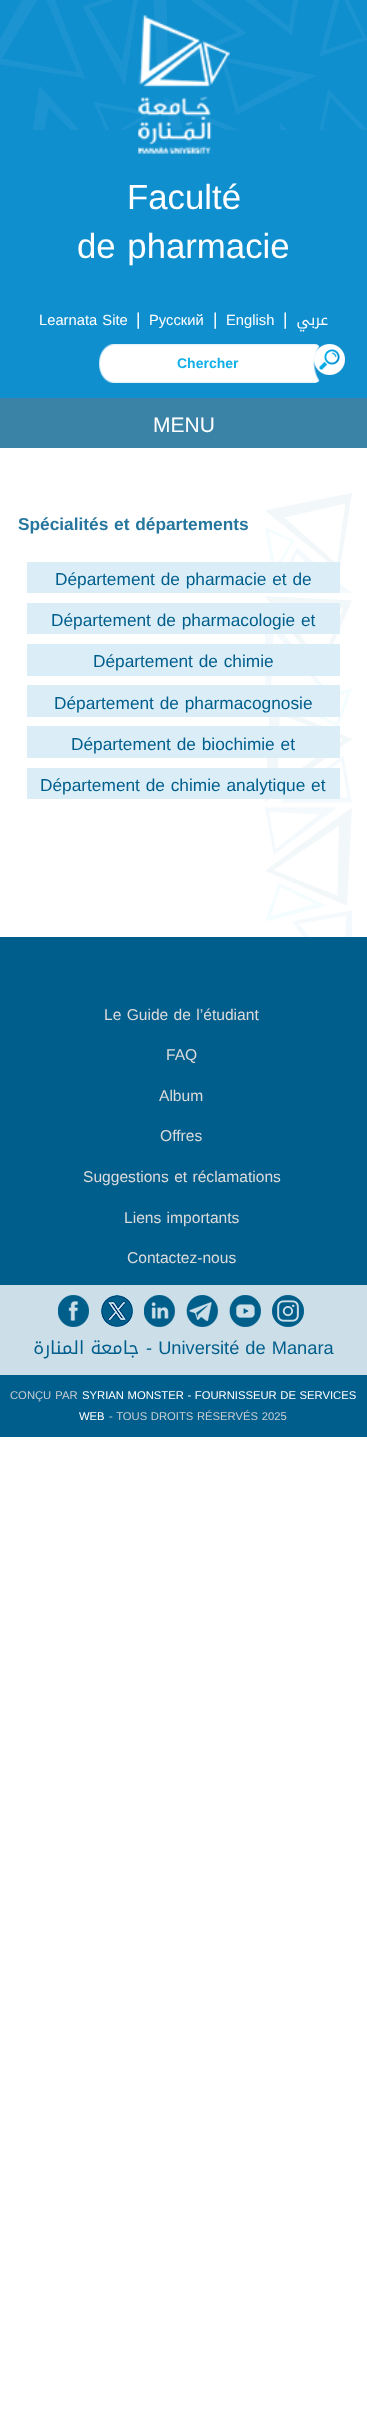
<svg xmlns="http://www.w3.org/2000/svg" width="367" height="2420">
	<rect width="100%" height="100%" fill="#FFFFFF" />
	<rect x="0" y="0" width="367" height="398" fill="#108FCF" />
	<image x="0" y="0" width="367" height="130" href="assets/img1.png" />
	<image x="138" y="15" width="92" height="139" href="assets/img2.png" />
	<g font-family="Liberation Sans" font-size="34.75" fill="#FFFFFF">
		<text x="127" y="209">Faculté</text>
		<text x="77" y="258" word-spacing="2">de pharmacie</text>
	</g>
	<text x="39" y="325" word-spacing="1" font-family="Liberation Sans" font-size="14.75" fill="#FFFFFF">Learnata Site</text>
	<text x="136" y="325" font-family="Liberation Sans" font-size="17.3" fill="#FFFFFF">|</text>
	<text x="149" y="325" font-family="Liberation Sans" font-size="14.75" fill="#FFFFFF">Русский</text>
	<text x="213" y="325" font-family="Liberation Sans" font-size="17.3" fill="#FFFFFF">|</text>
	<text x="226" y="325" font-family="Liberation Sans" font-size="14.75" fill="#FFFFFF">English</text>
	<text x="283" y="325" font-family="Liberation Sans" font-size="17.3" fill="#FFFFFF">|</text>
	<text x="328" y="325" font-family="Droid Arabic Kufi" font-size="14.75" direction="rtl" fill="#FFFFFF">عربي</text>
	<image x="314" y="344" width="31" height="31" href="assets/img4.png" />
	<image x="99" y="344" width="221" height="39" href="assets/img3.png" />
	<text x="177" y="368" font-family="Liberation Sans" font-size="14" font-weight="700" fill="#10AFE7">Chercher</text>
	<rect x="0" y="398" width="367" height="50" fill="#3A82A6" />
	<text x="153" y="432" font-family="Liberation Sans" font-size="21" fill="#FFFFFF">MENU</text>
	<image x="265" y="493" width="87" height="444" href="assets/img5.png" />
	<text x="18" y="530" word-spacing="1" font-family="Liberation Sans" font-size="17.3" font-weight="700" fill="#26769D">Spécialités et départements</text>
	<rect x="27" y="562" width="313" height="31" fill="#DBEEF8" />
	<text x="55" y="585" word-spacing="1" font-family="Liberation Sans" font-size="17.3" fill="#005E8C">Département de pharmacie et de</text>
	<rect x="27" y="603" width="313" height="31" fill="#DBEEF8" />
	<text x="51" y="626" word-spacing="1" font-family="Liberation Sans" font-size="17.3" fill="#005E8C">Département de pharmacologie et</text>
	<rect x="27" y="644" width="313" height="32" fill="#DBEEF8" />
	<text x="93" y="667" word-spacing="1" font-family="Liberation Sans" font-size="17.3" fill="#005E8C">Département de chimie</text>
	<rect x="27" y="685" width="313" height="32" fill="#DBEEF8" />
	<text x="54" y="709" word-spacing="1" font-family="Liberation Sans" font-size="17.3" fill="#005E8C">Département de pharmacognosie</text>
	<rect x="27" y="726" width="313" height="32" fill="#DBEEF8" />
	<text x="71" y="750" word-spacing="1" font-family="Liberation Sans" font-size="17.3" fill="#005E8C">Département de biochimie et</text>
	<rect x="27" y="768" width="313" height="31" fill="#DBEEF8" />
	<text x="40" y="791" word-spacing="1" font-family="Liberation Sans" font-size="17.3" fill="#005E8C">Département de chimie analytique et</text>
	<rect x="0" y="937" width="367" height="348" fill="#005E8C" />
	<g font-family="Liberation Sans" font-size="15.6" fill="#DBDBDB">
		<text x="104" y="1020" word-spacing="1">Le Guide de l’étudiant</text>
		<text x="166" y="1060">FAQ</text>
		<text x="159" y="1101">Album</text>
		<text x="160" y="1141">Offres</text>
		<text x="83" y="1182" word-spacing="1">Suggestions et réclamations</text>
		<text x="124" y="1223" word-spacing="1">Liens importants</text>
		<text x="127" y="1263">Contactez-nous</text>
	</g>
	<rect x="0" y="1285" width="367" height="90" fill="#CCDFE8" />
	<image x="58" y="1295" width="31" height="32" href="assets/img6.png" />
	<image x="101" y="1295" width="32" height="32" href="assets/img7.png" />
	<image x="144" y="1295" width="31" height="32" href="assets/img8.png" />
	<image x="186" y="1295" width="32" height="32" href="assets/img9.png" />
	<image x="229" y="1295" width="32" height="32" href="assets/img10.png" />
	<image x="272" y="1295" width="32" height="32" href="assets/img11.png" />
	<text x="139" y="1354" font-family="Droid Arabic Kufi" font-size="18.25" direction="rtl" fill="#005E8C">جامعة المنارة</text>
	<text x="146" y="1354" word-spacing="1" font-family="Liberation Sans" font-size="18.25" fill="#005E8C">- Université de Manara</text>
	<rect x="0" y="1375" width="367" height="62" fill="#005E8C" />
	<text x="10" y="1399" word-spacing="1" font-family="Liberation Sans" font-size="11.25" fill="#C9CED2">CONÇU PAR</text>
	<g font-family="Liberation Sans" font-size="11.25" fill="#FFFFFF">
		<text x="82" y="1399" word-spacing="0.5">SYRIAN MONSTER - FOURNISSEUR DE SERVICES</text>
		<text x="79" y="1420">WEB</text>
	</g>
	<text x="109" y="1420" word-spacing="0.5" font-family="Liberation Sans" font-size="11.25" fill="#C9CED2">- TOUS DROITS RÉSERVÉS 2025</text>
</svg>
